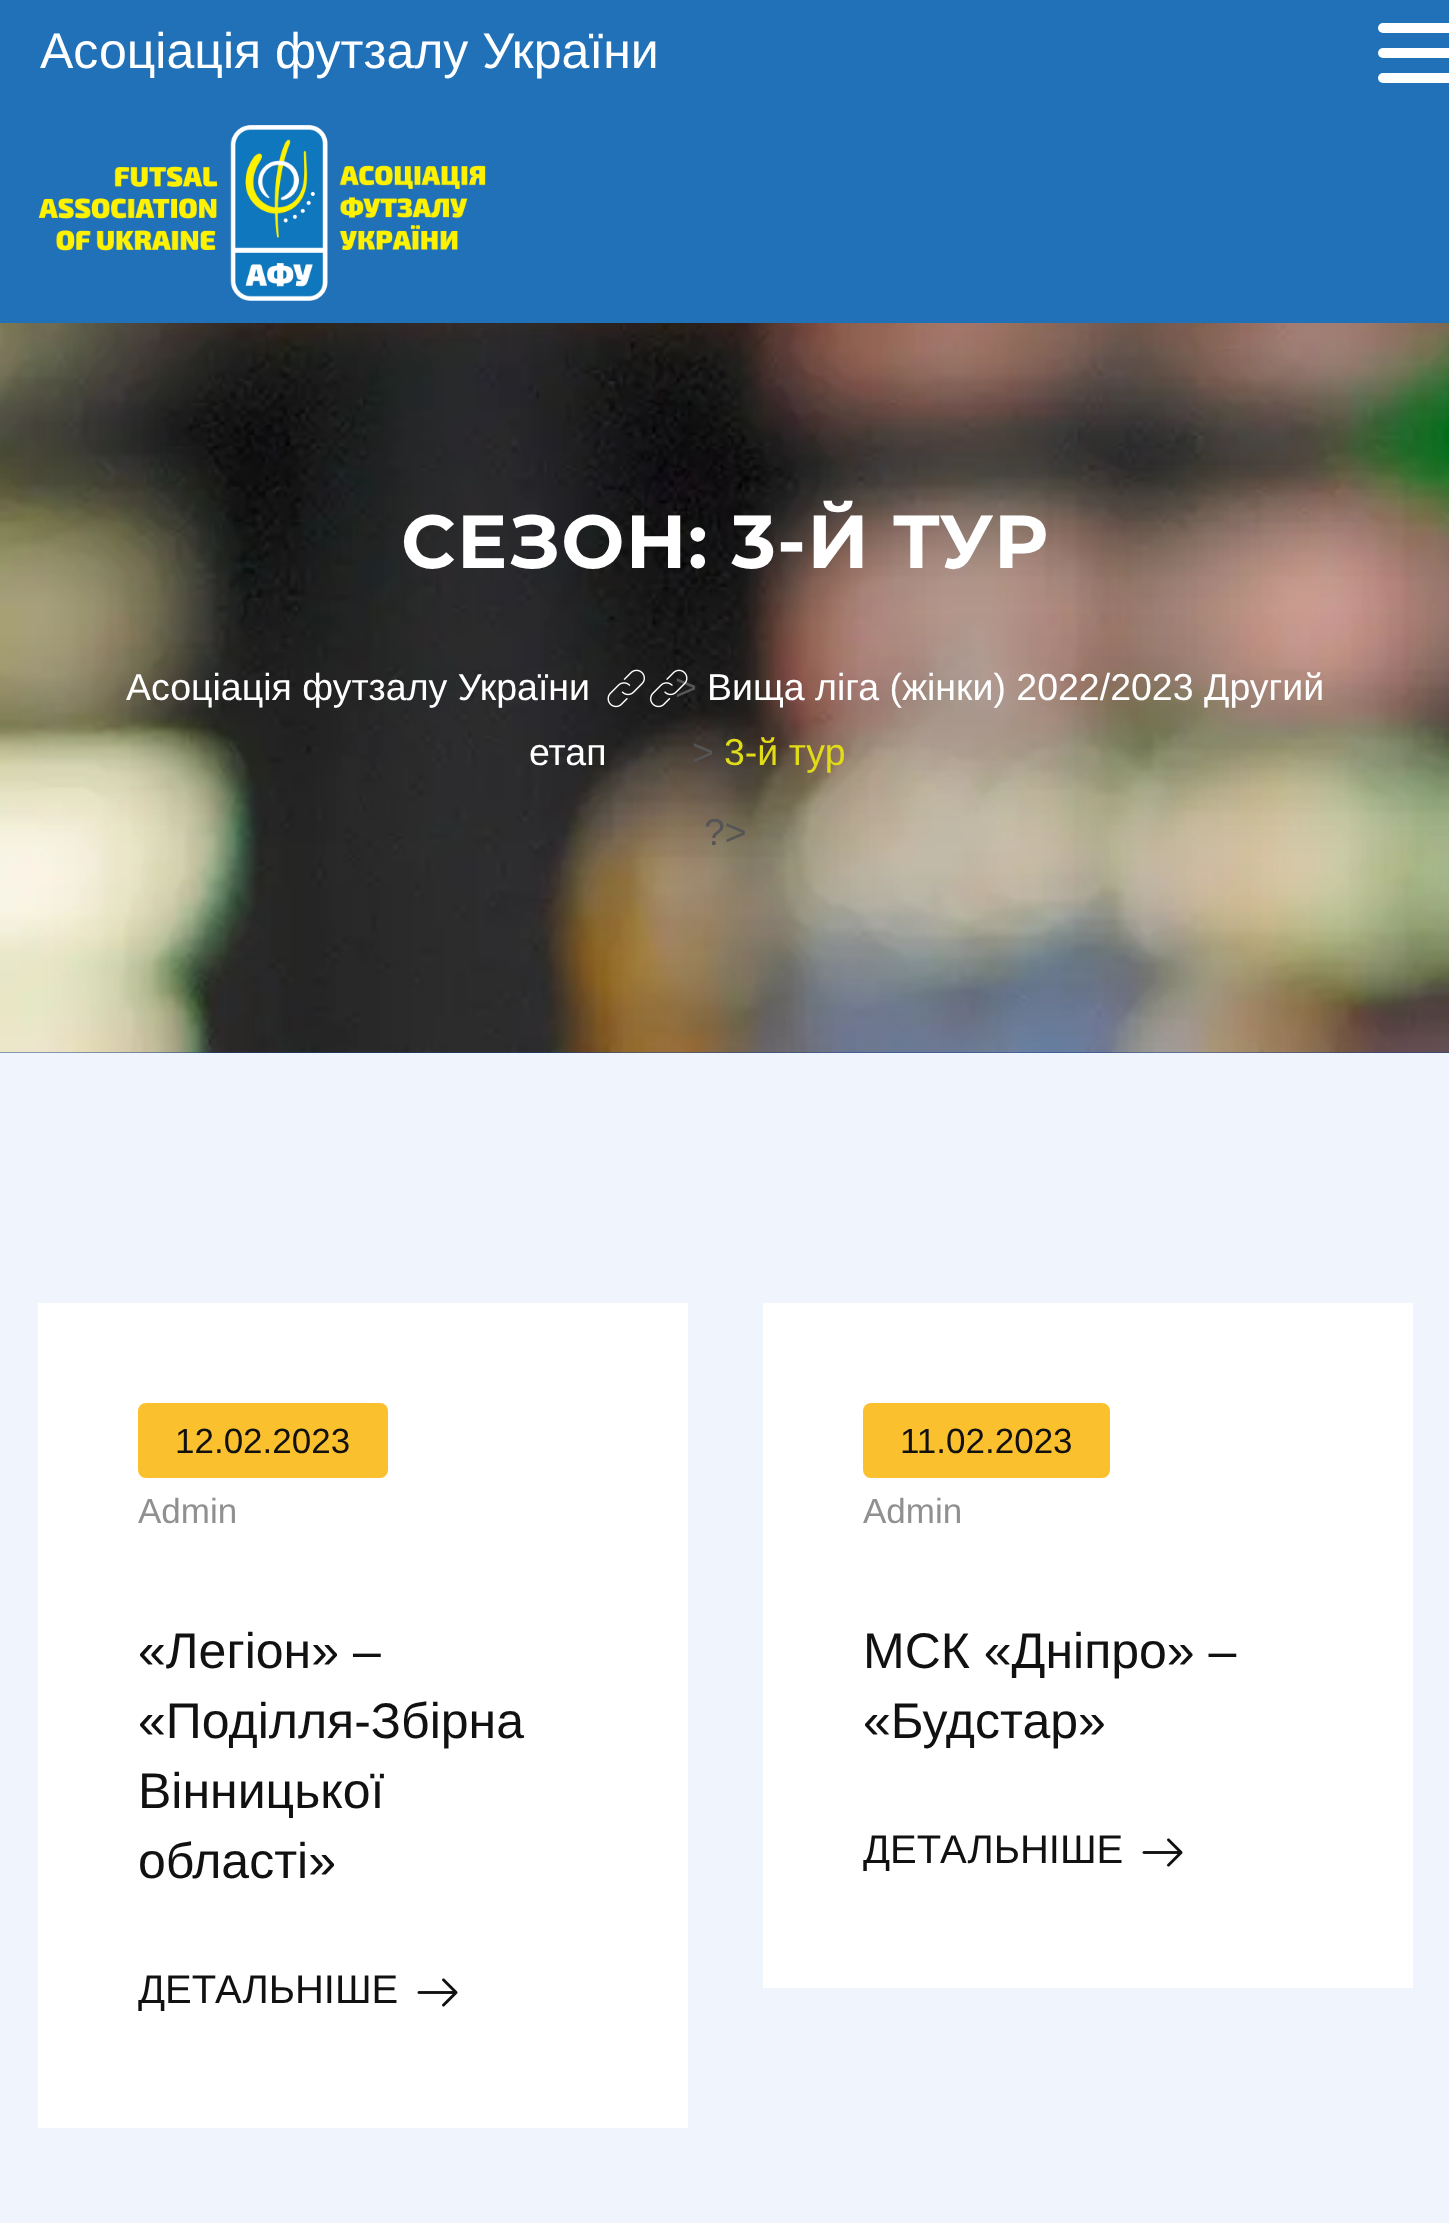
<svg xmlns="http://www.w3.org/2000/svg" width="1449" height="2223">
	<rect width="100%" height="100%" fill="#EFF4FD" />
	<rect x="0" y="0" width="1449" height="323" fill="#2171B8" />
	<text x="40" y="68" font-family="Liberation Sans" font-size="50" fill="#FFFFFF">Асоціація футзалу України</text>
	<rect x="1378" y="23" width="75" height="10" rx="5" fill="#FFFFFF" />
	<rect x="1378" y="48" width="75" height="10" rx="5" fill="#FFFFFF" />
	<rect x="1378" y="73" width="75" height="10" rx="5" fill="#FFFFFF" />
	<image x="38" y="125" width="448" height="176" href="assets/img1.png" />
	<rect x="0" y="1052" width="1449" height="1" fill="#214790" />
	<image x="0" y="323" width="1449" height="730" href="assets/img2.png" />
	<text x="401" y="568" font-family="Montserrat" font-size="75" font-weight="700" letter-spacing="1.25" fill="#FFFFFF">СЕЗОН: 3-Й ТУР</text>
	<text x="126" y="700" font-family="Liberation Sans" font-size="37.5" fill="#FFFFFF">Асоціація футзалу України</text>
	<image x="607" y="669" width="38" height="39" href="assets/img3.png" />
	<text x="675" y="700" font-family="Liberation Sans" font-size="37.5" fill="#555555">&gt;</text>
	<image x="650" y="669" width="38" height="39" href="assets/img4.png" />
	<g font-family="Liberation Sans" font-size="37.5" fill="#FFFFFF">
		<text x="707" y="700">Вища ліга (жінки) 2022/2023 Другий</text>
		<text x="529" y="765">етап</text>
	</g>
	<text x="692" y="765" font-family="Liberation Sans" font-size="37.5" fill="#555555">&gt;</text>
	<text x="724" y="765" font-family="Liberation Sans" font-size="37.5" fill="#E1DC18">3-й тур</text>
	<text x="704" y="845" font-family="Liberation Sans" font-size="37.5" fill="#555555">?&gt;</text>
	<rect x="38" y="1303" width="650" height="825" fill="#FFFFFF" />
	<rect x="138" y="1403" width="250" height="75" rx="8" fill="#FBC02D" />
	<text x="175" y="1453" font-family="Liberation Sans" font-size="35" fill="#111111">12.02.2023</text>
	<text x="138" y="1523" font-family="Liberation Sans" font-size="35" fill="#909090">Admin</text>
	<g font-family="Liberation Sans" font-size="50" fill="#111111">
		<text x="138" y="1668">«Легіон» –</text>
		<text x="138" y="1738">«Поділля-Збірна</text>
		<text x="138" y="1808">Вінницької</text>
		<text x="138" y="1878">області»</text>
	</g>
	<text x="138" y="2003" font-family="Liberation Sans" font-size="40" fill="#111111">ДЕТАЛЬНІШЕ</text>
	<image x="417" y="1978" width="41" height="29" href="assets/img5.png" />
	<rect x="763" y="1303" width="650" height="685" fill="#FFFFFF" />
	<rect x="863" y="1403" width="247" height="75" rx="8" fill="#FBC02D" />
	<text x="900" y="1453" font-family="Liberation Sans" font-size="35" fill="#111111">11.02.2023</text>
	<text x="863" y="1523" font-family="Liberation Sans" font-size="35" fill="#909090">Admin</text>
	<g font-family="Liberation Sans" font-size="50" fill="#111111">
		<text x="863" y="1668">МСК «Дніпро» –</text>
		<text x="863" y="1738">«Будстар»</text>
	</g>
	<text x="863" y="1863" font-family="Liberation Sans" font-size="40" fill="#111111">ДЕТАЛЬНІШЕ</text>
	<image x="1142" y="1838" width="41" height="29" href="assets/img5.png" />
</svg>
